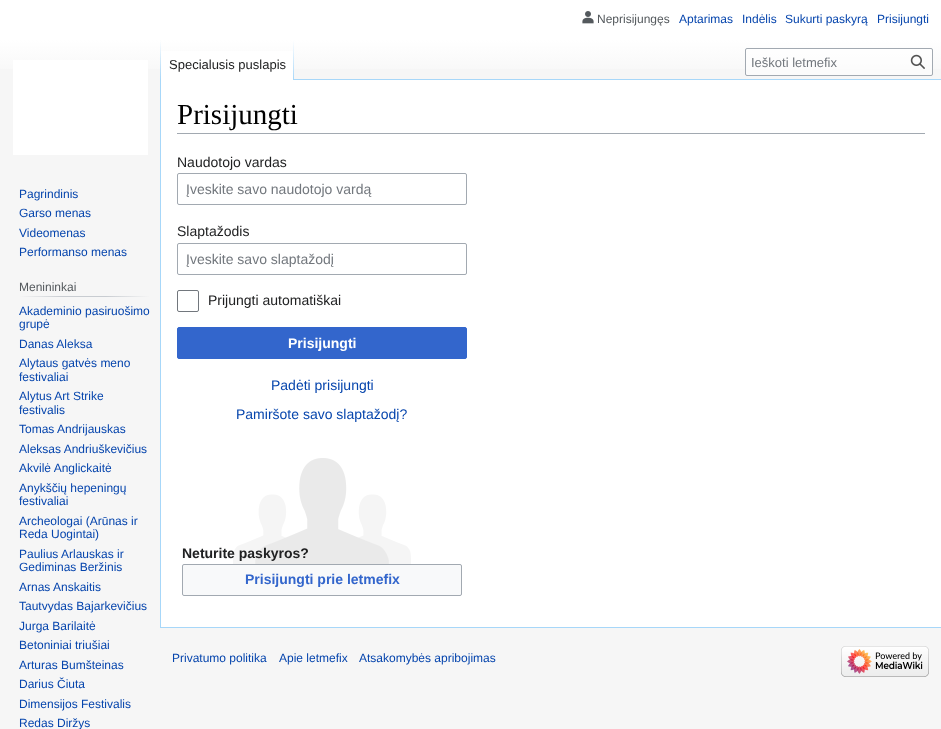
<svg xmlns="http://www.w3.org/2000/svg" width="941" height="729">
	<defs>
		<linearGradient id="g1" gradientUnits="userSpaceOnUse" x1="471" y1="0" x2="471" y2="80"><stop offset="0.5" stop-color="#FFFFFF" /><stop offset="1" stop-color="#F6F6F6" /></linearGradient>
		<linearGradient id="g2" gradientUnits="userSpaceOnUse" x1="161" y1="40" x2="161" y2="80"><stop offset="0" stop-color="#A7D7F9" stop-opacity="0" /><stop offset="1" stop-color="#A7D7F9" /></linearGradient>
		<linearGradient id="g3" gradientUnits="userSpaceOnUse" x1="294" y1="40" x2="294" y2="80"><stop offset="0" stop-color="#FFFFFF" /><stop offset="1" stop-color="#A7D7F9" /></linearGradient>
		<linearGradient id="g4" gradientUnits="userSpaceOnUse" x1="19" y1="297" x2="150" y2="297"><stop offset="0" stop-color="#F6F6F6" /><stop offset="0.33" stop-color="#C8CCD1" /><stop offset="0.66" stop-color="#C8CCD1" /><stop offset="1" stop-color="#F6F6F6" /></linearGradient>
	</defs>
	<rect width="100%" height="100%" fill="#F6F6F6" />
	<rect x="0" y="0" width="941" height="69" fill="url(#g1)" />
	<image x="582" y="11" width="12" height="13" href="assets/img1.png" />
	<text x="597" y="23" font-family="Liberation Sans" font-size="12" fill="#54595D">Neprisijungęs</text>
	<g font-family="Liberation Sans" font-size="12" fill="#0645AD">
		<text x="679" y="23">Aptarimas</text>
		<text x="742" y="23">Indėlis</text>
		<text x="785" y="23">Sukurti paskyrą</text>
		<text x="877" y="23">Prisijungti</text>
	</g>
	<rect x="160" y="627" width="781" height="1" fill="#A7D7F9" />
	<rect x="160" y="79" width="1" height="549" fill="#A7D7F9" />
	<rect x="160" y="40" width="1" height="40" fill="url(#g2)" />
	<rect x="161" y="51" width="132" height="29" fill="#FFFFFF" />
	<rect x="293" y="40" width="1" height="40" fill="url(#g3)" />
	<text x="169" y="69" font-family="Liberation Sans" font-size="13" fill="#202122">Specialusis puslapis</text>
	<rect x="745.5" y="48.5" width="187" height="27" rx="1.5" fill="#FFFFFF" fill-opacity="0.5" stroke="#A2A9B1" />
	<text x="751" y="67" font-family="Liberation Sans" font-size="13" fill="#72777D">Ieškoti letmefix</text>
	<image x="910" y="54" width="15" height="15" href="assets/img2.png" />
	<rect x="13" y="60" width="135" height="95" fill="#FFFFFF" />
	<g font-family="Liberation Sans" font-size="12" fill="#0645AD">
		<text x="19" y="198">Pagrindinis</text>
		<text x="19" y="217">Garso menas</text>
		<text x="19" y="237">Videomenas</text>
		<text x="19" y="256">Performanso menas</text>
	</g>
	<rect x="19" y="296" width="131" height="1" fill="url(#g4)" />
	<text x="19" y="291" font-family="Liberation Sans" font-size="12" fill="#54595D">Menininkai</text>
	<g font-family="Liberation Sans" font-size="12" fill="#0645AD">
		<text x="19" y="315">Akademinio pasiruošimo</text>
		<text x="19" y="328">grupė</text>
		<text x="19" y="348">Danas Aleksa</text>
		<text x="19" y="367">Alytaus gatvės meno</text>
		<text x="19" y="381">festivaliai</text>
		<text x="19" y="400">Alytus Art Strike</text>
		<text x="19" y="414">festivalis</text>
		<text x="19" y="433">Tomas Andrijauskas</text>
		<text x="19" y="453">Aleksas Andriuškevičius</text>
		<text x="19" y="472">Akvilė Anglickaitė</text>
		<text x="19" y="492">Anykščių hepeningų</text>
		<text x="19" y="505">festivaliai</text>
		<text x="19" y="525">Archeologai (Arūnas ir</text>
		<text x="19" y="538">Reda Uogintai)</text>
		<text x="19" y="558">Paulius Arlauskas ir</text>
		<text x="19" y="571">Gediminas Beržinis</text>
		<text x="19" y="591">Arnas Anskaitis</text>
		<text x="19" y="610">Tautvydas Bajarkevičius</text>
		<text x="19" y="630">Jurga Barilaitė</text>
		<text x="19" y="649">Betoniniai triušiai</text>
		<text x="19" y="669">Arturas Bumšteinas</text>
		<text x="19" y="688">Darius Čiuta</text>
		<text x="19" y="708">Dimensijos Festivalis</text>
		<text x="19" y="727">Redas Diržys</text>
	</g>
	<rect x="161" y="80" width="780" height="547" fill="#FFFFFF" />
	<rect x="294" y="79" width="647" height="1" fill="#A7D7F9" />
	<rect x="177" y="133" width="748" height="1" fill="#A2A9B1" />
	<text x="177" y="124" font-family="Liberation Serif" font-size="29" fill="#000000">Prisijungti</text>
	<text x="177" y="167" font-family="Liberation Sans" font-size="14" fill="#202122">Naudotojo vardas</text>
	<rect x="177.5" y="173.5" width="289" height="31" rx="1.5" fill="none" stroke="#A2A9B1" />
	<text x="186" y="194" font-family="Liberation Sans" font-size="14" fill="#72777D">Įveskite savo naudotojo vardą</text>
	<text x="177" y="236" font-family="Liberation Sans" font-size="14" fill="#202122">Slaptažodis</text>
	<rect x="177.5" y="243.5" width="289" height="31" rx="1.5" fill="none" stroke="#A2A9B1" />
	<text x="186" y="264" font-family="Liberation Sans" font-size="14" fill="#72777D">Įveskite savo slaptažodį</text>
	<rect x="177.5" y="290.5" width="21" height="21" rx="1.5" fill="none" stroke="#72777D" />
	<text x="208" y="305" font-family="Liberation Sans" font-size="14" fill="#202122">Prijungti automatiškai</text>
	<rect x="177.5" y="327.5" width="289" height="31" rx="1.5" fill="#3366CC" stroke="#3366CC" />
	<text x="288" y="348" font-family="Liberation Sans" font-size="14" font-weight="700" fill="#FFFFFF">Prisijungti</text>
	<g font-family="Liberation Sans" font-size="14" fill="#0645AD">
		<text x="271" y="390">Padėti prisijungti</text>
		<text x="236" y="419">Pamiršote savo slaptažodį?</text>
	</g>
	<image x="233" y="458" width="178" height="106" href="assets/img3.png" />
	<text x="182" y="558" font-family="Liberation Sans" font-size="14" font-weight="700" fill="#202122">Neturite paskyros?</text>
	<rect x="182.5" y="564.5" width="279" height="31" rx="1.5" fill="#F8F9FA" stroke="#A2A9B1" />
	<text x="245" y="584" font-family="Liberation Sans" font-size="14" font-weight="700" fill="#3366CC">Prisijungti prie letmefix</text>
	<g font-family="Liberation Sans" font-size="12" fill="#0645AD">
		<text x="172" y="662">Privatumo politika</text>
		<text x="279" y="662">Apie letmefix</text>
		<text x="359" y="662">Atsakomybės apribojimas</text>
	</g>
	<image x="841" y="646" width="88" height="31" href="assets/img4.png" />
</svg>
